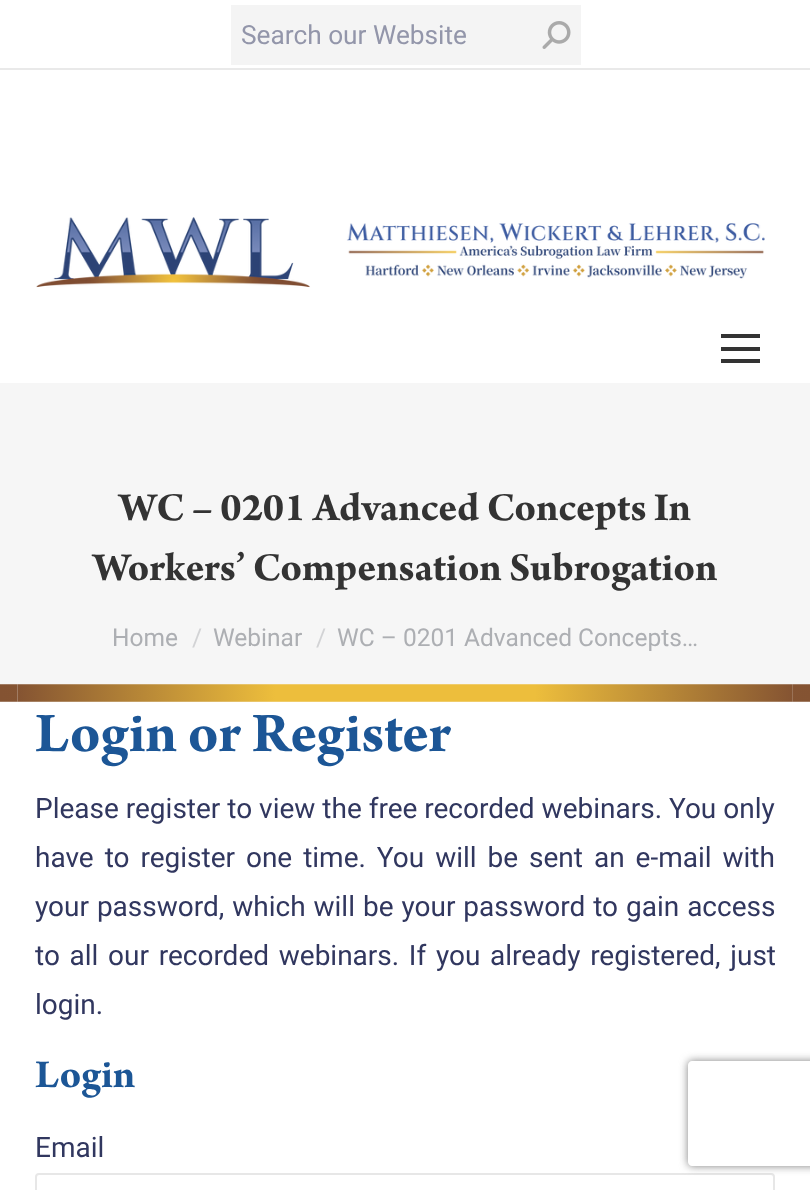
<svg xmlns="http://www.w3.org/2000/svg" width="810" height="1190">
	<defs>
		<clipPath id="clip1"><path d="M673 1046H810V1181H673ZM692 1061H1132C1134 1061 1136 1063 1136 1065V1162C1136 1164 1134 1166 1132 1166H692C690 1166 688 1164 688 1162V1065C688 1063 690 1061 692 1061Z" clip-rule="evenodd" /></clipPath>
	</defs>
	<rect width="100%" height="100%" fill="#FFFFFF" />
	<rect x="231" y="5" width="350" height="60" fill="#F4F4F4" />
	<text x="241" y="44" font-family="Roboto" font-size="26.25" fill="#9396AA">Search our Website</text>
	<image x="542" y="21" width="29" height="28" href="assets/img1.png" />
	<rect x="0" y="68" width="810" height="2" fill="#E9E9E9" />
	<image x="36" y="217" width="729" height="71" href="assets/img2.png" />
	<rect x="721" y="334" width="39" height="4" fill="#333333" />
	<rect x="721" y="347" width="39" height="4" fill="#333333" />
	<rect x="721" y="359" width="39" height="4" fill="#333333" />
	<rect x="0" y="383" width="810" height="319" fill="#F6F6F6" />
	<image x="0" y="684" width="810" height="18" href="assets/img3.png" />
	<g font-family="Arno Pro" font-size="42" font-weight="700" fill="#333333">
		<text x="119" y="520">WC – 0201 Advanced Concepts In</text>
		<text x="93" y="580">Workers’ Compensation Subrogation</text>
	</g>
	<text x="112" y="646" font-family="Roboto" font-size="24.5" fill="#ADAFB3">Home</text>
	<text x="192" y="646" font-family="Roboto" font-size="24.5" fill="#D2D3D5">/</text>
	<text x="213" y="646" font-family="Roboto" font-size="24.5" fill="#ADAFB3">Webinar</text>
	<text x="316" y="646" font-family="Roboto" font-size="24.5" fill="#D2D3D5">/</text>
	<text x="337" y="646" font-family="Roboto" font-size="24.5" fill="#ADAFB3">WC – 0201 Advanced Concepts…</text>
	<text x="35" y="751" font-family="Arno Pro" font-size="59.5" font-weight="700" fill="#1C5696">Login or Register</text>
	<g font-family="Roboto" font-size="28" fill="#31375F">
		<text x="35" y="818">Please register to view the free recorded webinars. You only</text>
		<text x="35" y="867" word-spacing="4">have to register one time. You will be sent an e-mail with</text>
		<text x="35" y="916" word-spacing="1">your password, which will be your password to gain access</text>
		<text x="35" y="965" word-spacing="2.75">to all our recorded webinars. If you already registered, just</text>
		<text x="35" y="1014">login.</text>
	</g>
	<text x="35" y="1087" font-family="Arno Pro" font-size="42" font-weight="700" fill="#1C5696">Login</text>
	<text x="35" y="1157" font-family="Roboto" font-size="28" fill="#31375F">Email</text>
	<rect x="36" y="1174" width="738" height="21" rx="3" fill="none" stroke="#E7E7E7" stroke-width="2" />
	<g clip-path="url(#clip1)">
		<rect x="688" y="1061" width="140" height="105" rx="4" fill="#808080" filter="blur(4.5px)" />
	</g>
</svg>
